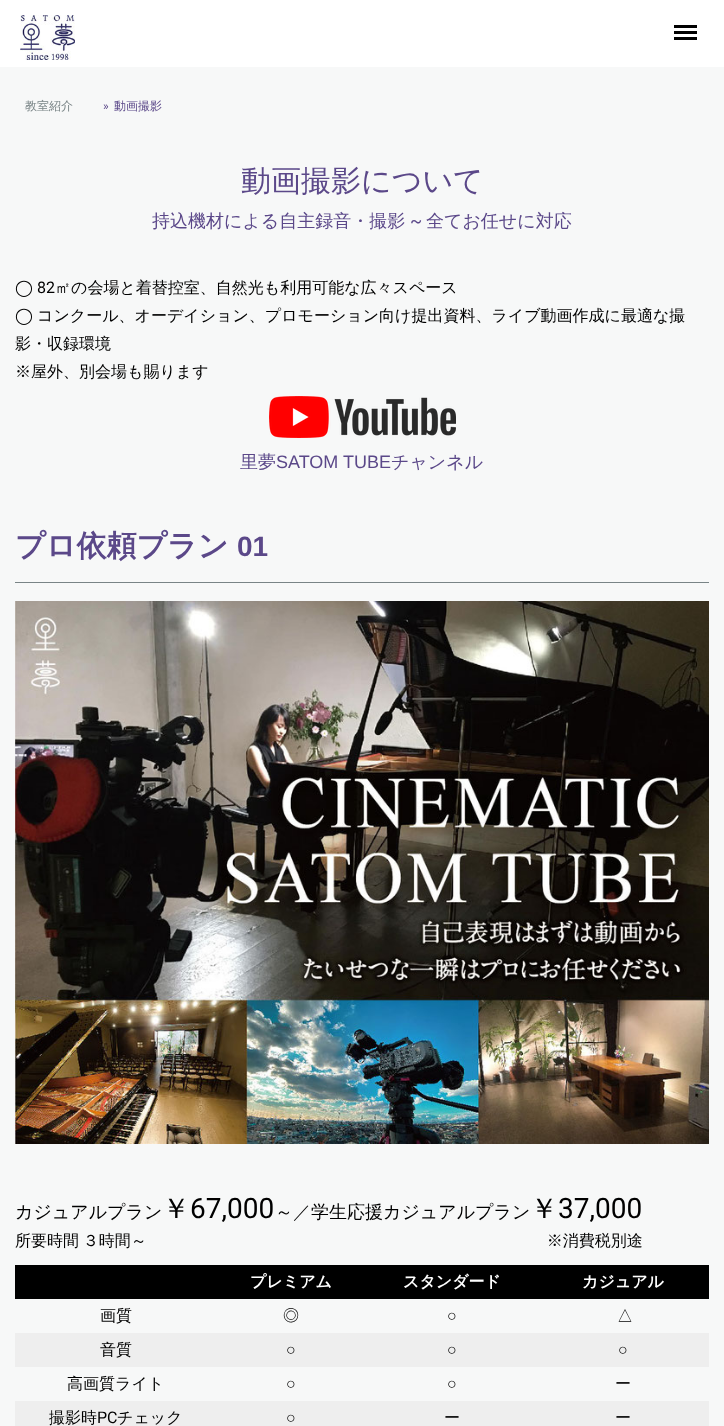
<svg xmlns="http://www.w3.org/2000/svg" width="724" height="1426">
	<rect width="100%" height="100%" fill="#FFFFFF" />
	<image x="20" y="15" width="55" height="45" href="assets/img1.png" />
	<rect x="674" y="31" width="23" height="3" fill="#000000" />
	<rect x="674" y="25" width="23" height="3" fill="#000000" />
	<rect x="674" y="37" width="23" height="3" fill="#000000" />
	<rect x="0" y="67" width="724" height="1359" fill="#F7F8F8" />
	<text x="25" y="110" font-family="WenQuanYi Zen Hei" font-size="12" font-weight="500" fill="#798486">教室紹介</text>
	<text x="103" y="110" font-family="Roboto" font-size="12" fill="#5B4889">»</text>
	<text x="114" y="110" font-family="WenQuanYi Zen Hei" font-size="12" font-weight="500" fill="#5B4889">動画撮影</text>
	<text x="241" y="191" font-family="WenQuanYi Zen Hei" font-size="30" font-weight="500" fill="#5B4889">動画撮影について</text>
	<text x="152" y="227" font-family="WenQuanYi Zen Hei" font-size="18" font-weight="500" fill="#5B4889">持込機材による自主録音・撮影</text>
	<text x="410" y="227" font-family="Roboto" font-size="18" fill="#5B4889">~</text>
	<text x="426" y="227" font-family="WenQuanYi Zen Hei" font-size="18" font-weight="500" fill="#5B4889">全てお任せに対応</text>
	<text x="15" y="293" font-family="DejaVu Sans" font-size="16" fill="#000000">◯</text>
	<text x="37" y="293" font-family="Roboto" font-size="16" fill="#000000">82</text>
	<text x="55" y="293" font-family="WenQuanYi Zen Hei" font-size="16" font-weight="500" fill="#000000">㎡の会場と着替控室、自然光も利用可能な広々スペース</text>
	<text x="15" y="321" font-family="DejaVu Sans" font-size="16" fill="#000000">◯</text>
	<g font-family="WenQuanYi Zen Hei" font-size="16" font-weight="500" fill="#000000">
		<text x="37" y="321">コンクール、オーデイション、プロモーション向け提出資料、ライブ動画作成に最適な撮</text>
		<text x="15" y="349">影・収録環境</text>
		<text x="15" y="377">※屋外、別会場も賜ります</text>
	</g>
	<image x="269" y="396" width="187" height="42" href="assets/img2.png" />
	<text x="240" y="468" font-family="WenQuanYi Zen Hei" font-size="18" font-weight="500" fill="#5B4889">里夢</text>
	<text x="276" y="468" font-family="Liberation Sans" font-size="18" fill="#5B4889">SATOM TUBE</text>
	<text x="391" y="468" font-family="WenQuanYi Zen Hei" font-size="18" font-weight="500" fill="#5B4889">チャンネル</text>
	<text x="15" y="556" font-family="WenQuanYi Zen Hei" font-size="30" font-weight="700" fill="#5B4889">プロ依頼プラン</text>
	<text x="237" y="556" font-family="Liberation Sans" font-size="28" font-weight="700" fill="#5B4889">01</text>
	<rect x="15" y="582" width="694" height="1" fill="#798486" />
	<image x="15" y="601" width="694" height="543" href="assets/img3.png" />
	<text x="15" y="1218" font-family="WenQuanYi Zen Hei" font-size="18" font-weight="500" fill="#000000">カジュアルプラン</text>
	<text x="162" y="1218" font-family="WenQuanYi Zen Hei" font-size="28" font-weight="500" fill="#000000">￥</text>
	<text x="190" y="1218" font-family="Roboto" font-size="28" fill="#000000">67,000</text>
	<text x="275" y="1218" font-family="WenQuanYi Zen Hei" font-size="18" font-weight="500" fill="#000000">～／学生応援カジュアルプラン</text>
	<text x="530" y="1218" font-family="WenQuanYi Zen Hei" font-size="28" font-weight="500" fill="#000000">￥</text>
	<text x="558" y="1218" font-family="Roboto" font-size="28" fill="#000000">37,000</text>
	<text x="15" y="1246" word-spacing="-1" font-family="WenQuanYi Zen Hei" font-size="16" font-weight="500" fill="#000000">所要時間 ３時間～　　　　　　　　　　　　　　　　　　　　　　　　　※消費税別途</text>
	<rect x="15" y="1265" width="694" height="34" fill="#000000" />
	<g font-family="WenQuanYi Zen Hei" font-size="16" font-weight="700" fill="#FFFFFF">
		<text x="250" y="1287">プレミアム</text>
		<text x="403" y="1287">スタンダード</text>
		<text x="582" y="1287">カジュアル</text>
	</g>
	<g font-family="WenQuanYi Zen Hei" font-size="16" font-weight="500" fill="#000000">
		<text x="100" y="1321">画質</text>
		<text x="283" y="1321">◎</text>
	</g>
	<text x="447" y="1321" font-family="Liberation Sans" font-size="16" fill="#000000">○</text>
	<text x="617" y="1321" font-family="WenQuanYi Zen Hei" font-size="16" font-weight="500" fill="#000000">△</text>
	<rect x="15" y="1333" width="694" height="34" fill="#EEEEEE" />
	<text x="100" y="1355" font-family="WenQuanYi Zen Hei" font-size="16" font-weight="500" fill="#000000">音質</text>
	<g font-family="Liberation Sans" font-size="16" fill="#000000">
		<text x="286" y="1355">○</text>
		<text x="447" y="1355">○</text>
		<text x="618" y="1355">○</text>
	</g>
	<text x="67" y="1389" font-family="WenQuanYi Zen Hei" font-size="16" font-weight="500" fill="#000000">高画質ライト</text>
	<g font-family="Liberation Sans" font-size="16" fill="#000000">
		<text x="286" y="1389">○</text>
		<text x="447" y="1389">○</text>
	</g>
	<text x="615" y="1389" font-family="WenQuanYi Zen Hei" font-size="16" font-weight="500" fill="#000000">ー</text>
	<rect x="15" y="1401" width="694" height="25" fill="#EEEEEE" />
	<text x="49" y="1423" font-family="WenQuanYi Zen Hei" font-size="16" font-weight="500" fill="#000000">撮影時</text>
	<text x="97" y="1423" font-family="Roboto" font-size="16" fill="#000000">PC</text>
	<text x="117" y="1423" font-family="WenQuanYi Zen Hei" font-size="16" font-weight="500" fill="#000000">チェック</text>
	<text x="286" y="1423" font-family="Liberation Sans" font-size="16" fill="#000000">○</text>
	<g font-family="WenQuanYi Zen Hei" font-size="16" font-weight="500" fill="#000000">
		<text x="444" y="1423">ー</text>
		<text x="615" y="1423">ー</text>
	</g>
</svg>
